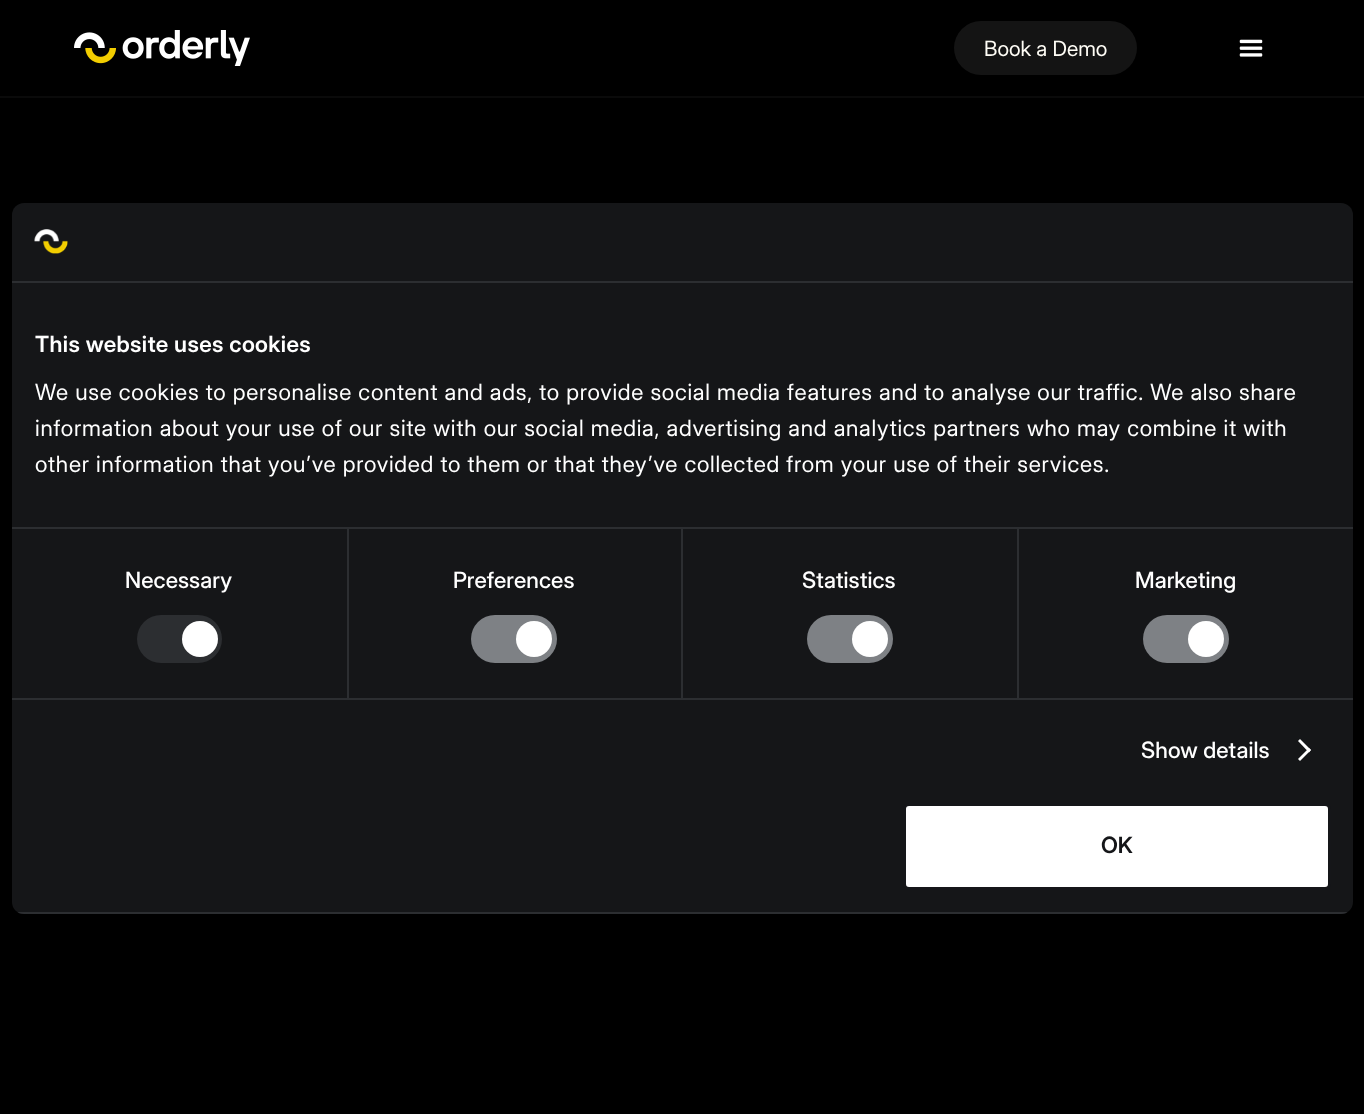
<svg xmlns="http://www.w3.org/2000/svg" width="1364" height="1114">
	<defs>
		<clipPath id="clip1"><rect x="12" y="203" width="1341" height="711" rx="12" /></clipPath>
	</defs>
	<rect width="100%" height="100%" fill="#000000" />
	<rect x="0" y="96" width="1364" height="2" fill="#0A0A0A" />
	<image x="74" y="30" width="176" height="36" href="assets/img1.png" />
	<rect x="954" y="21" width="183" height="54" rx="27" fill="#141414" />
	<text x="984" y="56" font-family="Inter Display" font-size="21" fill="#FFFDF6">Book a Demo</text>
	<image x="1239" y="39" width="24" height="18" href="assets/img2.png" />
	<rect x="12" y="203" width="1341" height="711" rx="12" fill="#151618" />
	<rect x="12" y="281" width="1341" height="2" fill="#2C2E31" />
	<image x="34" y="229" width="34" height="25" href="assets/img3.png" />
	<rect x="347" y="528" width="2" height="170" fill="#2C2E31" />
	<rect x="681" y="528" width="2" height="170" fill="#2C2E31" />
	<rect x="1017" y="528" width="2" height="170" fill="#2C2E31" />
	<rect x="12" y="527" width="1341" height="2" fill="#2C2E31" />
	<text x="35" y="352" font-family="Inter Display" font-size="22.5" font-weight="600" letter-spacing="0.4" fill="#FFFFFF">This website uses cookies</text>
	<g font-family="Inter Display" font-size="22.5" letter-spacing="0.75" fill="#FFFFFF">
		<text x="35" y="400">We use cookies to personalise content and ads, to provide social media features and to analyse our traffic. We also share</text>
		<text x="35" y="436">information about your use of our site with our social media, advertising and analytics partners who may combine it with</text>
		<text x="35" y="472">other information that you’ve provided to them or that they’ve collected from your use of their services.</text>
	</g>
	<rect x="12" y="698" width="1341" height="2" fill="#2C2E31" />
	<text x="125" y="588" font-family="Inter Display" font-size="22.5" font-weight="500" letter-spacing="0.1" fill="#FFFFFF">Necessary</text>
	<rect x="137" y="615" width="85" height="48" rx="24" fill="#2C2E31" />
	<circle cx="200" cy="639" r="18" fill="#FFFFFF" />
	<text x="453" y="588" font-family="Inter Display" font-size="22.5" font-weight="500" letter-spacing="0.1" fill="#FFFFFF">Preferences</text>
	<rect x="471" y="615" width="86" height="48" rx="24" fill="#7E8185" />
	<circle cx="534" cy="639" r="18" fill="#FFFFFF" />
	<text x="802" y="588" font-family="Inter Display" font-size="22.5" font-weight="500" letter-spacing="0.1" fill="#FFFFFF">Statistics</text>
	<rect x="807" y="615" width="86" height="48" rx="24" fill="#7E8185" />
	<circle cx="870" cy="639" r="18" fill="#FFFFFF" />
	<text x="1135" y="588" font-family="Inter Display" font-size="22.5" font-weight="500" letter-spacing="0.1" fill="#FFFFFF">Marketing</text>
	<rect x="1143" y="615" width="86" height="48" rx="24" fill="#7E8185" />
	<circle cx="1206" cy="639" r="18" fill="#FFFFFF" />
	<text x="1141" y="758" font-family="Inter Display" font-size="22.5" font-weight="500" letter-spacing="0.1" fill="#FFFFFF">Show details</text>
	<path d="M1300 739L1311 750L1309 752.5L1298 741Z" fill="#FFFFFF" />
	<path d="M1309 748L1311 750L1300 761L1298 759Z" fill="#FFFFFF" />
	<g clip-path="url(#clip1)">
		<rect x="12" y="912" width="1341" height="2" fill="#2C2E31" />
	</g>
	<rect x="904.5" y="804.5" width="425" height="84" rx="4.5" fill="#FFFFFF" stroke="#151619" stroke-width="3" />
	<text x="1101" y="853" font-family="Inter Display" font-size="22.5" font-weight="600" fill="#151619">OK</text>
</svg>
